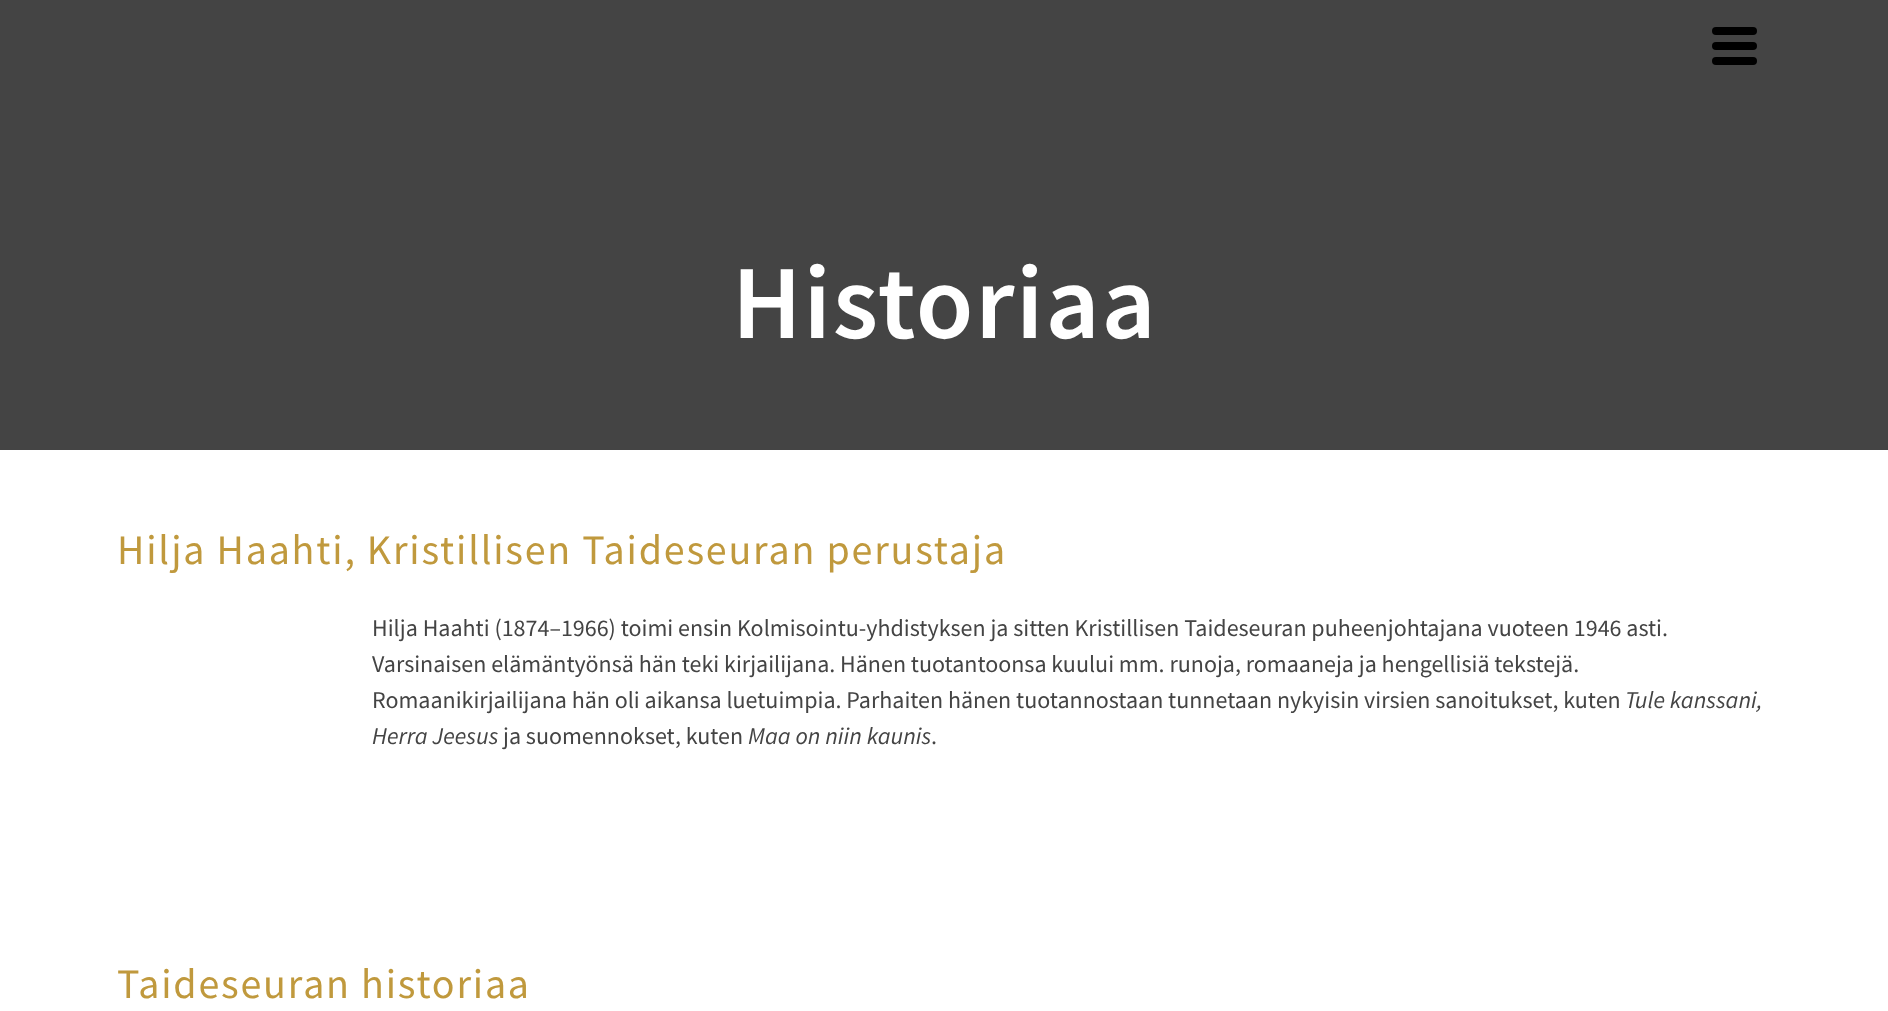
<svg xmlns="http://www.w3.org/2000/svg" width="1888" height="1011">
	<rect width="100%" height="100%" fill="#FFFFFF" />
	<rect x="0" y="0" width="1888" height="450" fill="#444444" />
	<rect x="1712" y="27" width="45" height="8" rx="4" fill="#000000" />
	<rect x="1712" y="42" width="45" height="8" rx="4" fill="#000000" />
	<rect x="1712" y="57" width="45" height="8" rx="4" fill="#000000" />
	<text x="732" y="338" font-family="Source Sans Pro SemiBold" font-size="105" font-weight="600" letter-spacing="1.8" fill="#FFFFFF">Historiaa</text>
	<text x="117" y="564" font-family="Source Sans Pro" font-size="42" letter-spacing="1.8" fill="#C0993D">Hilja Haahti, Kristillisen Taideseuran perustaja</text>
	<g font-family="Source Sans Pro" font-size="24" fill="#444444">
		<text x="372" y="636">Hilja Haahti (1874–1966) toimi ensin Kolmisointu-yhdistyksen ja sitten Kristillisen Taideseuran puheenjohtajana vuoteen 1946 asti.</text>
		<text x="372" y="672">Varsinaisen elämäntyönsä hän teki kirjailijana. Hänen tuotantoonsa kuului mm. runoja, romaaneja ja hengellisiä tekstejä.</text>
		<text x="372" y="708">Romaanikirjailijana hän oli aikansa luetuimpia. Parhaiten hänen tuotannostaan tunnetaan nykyisin virsien sanoitukset, kuten</text>
	</g>
	<g font-family="Source Sans Pro" font-size="24" font-style="italic" fill="#444444">
		<text x="1625" y="708">Tule kanssani,</text>
		<text x="372" y="744">Herra Jeesus</text>
	</g>
	<text x="503" y="744" font-family="Source Sans Pro" font-size="24" fill="#444444">ja suomennokset, kuten</text>
	<text x="748" y="744" font-family="Source Sans Pro" font-size="24" font-style="italic" fill="#444444">Maa on niin kaunis</text>
	<text x="931" y="744" font-family="Source Sans Pro" font-size="24" fill="#444444">.</text>
	<text x="117" y="998" font-family="Source Sans Pro" font-size="42" letter-spacing="1.8" fill="#C0993D">Taideseuran historiaa</text>
</svg>
